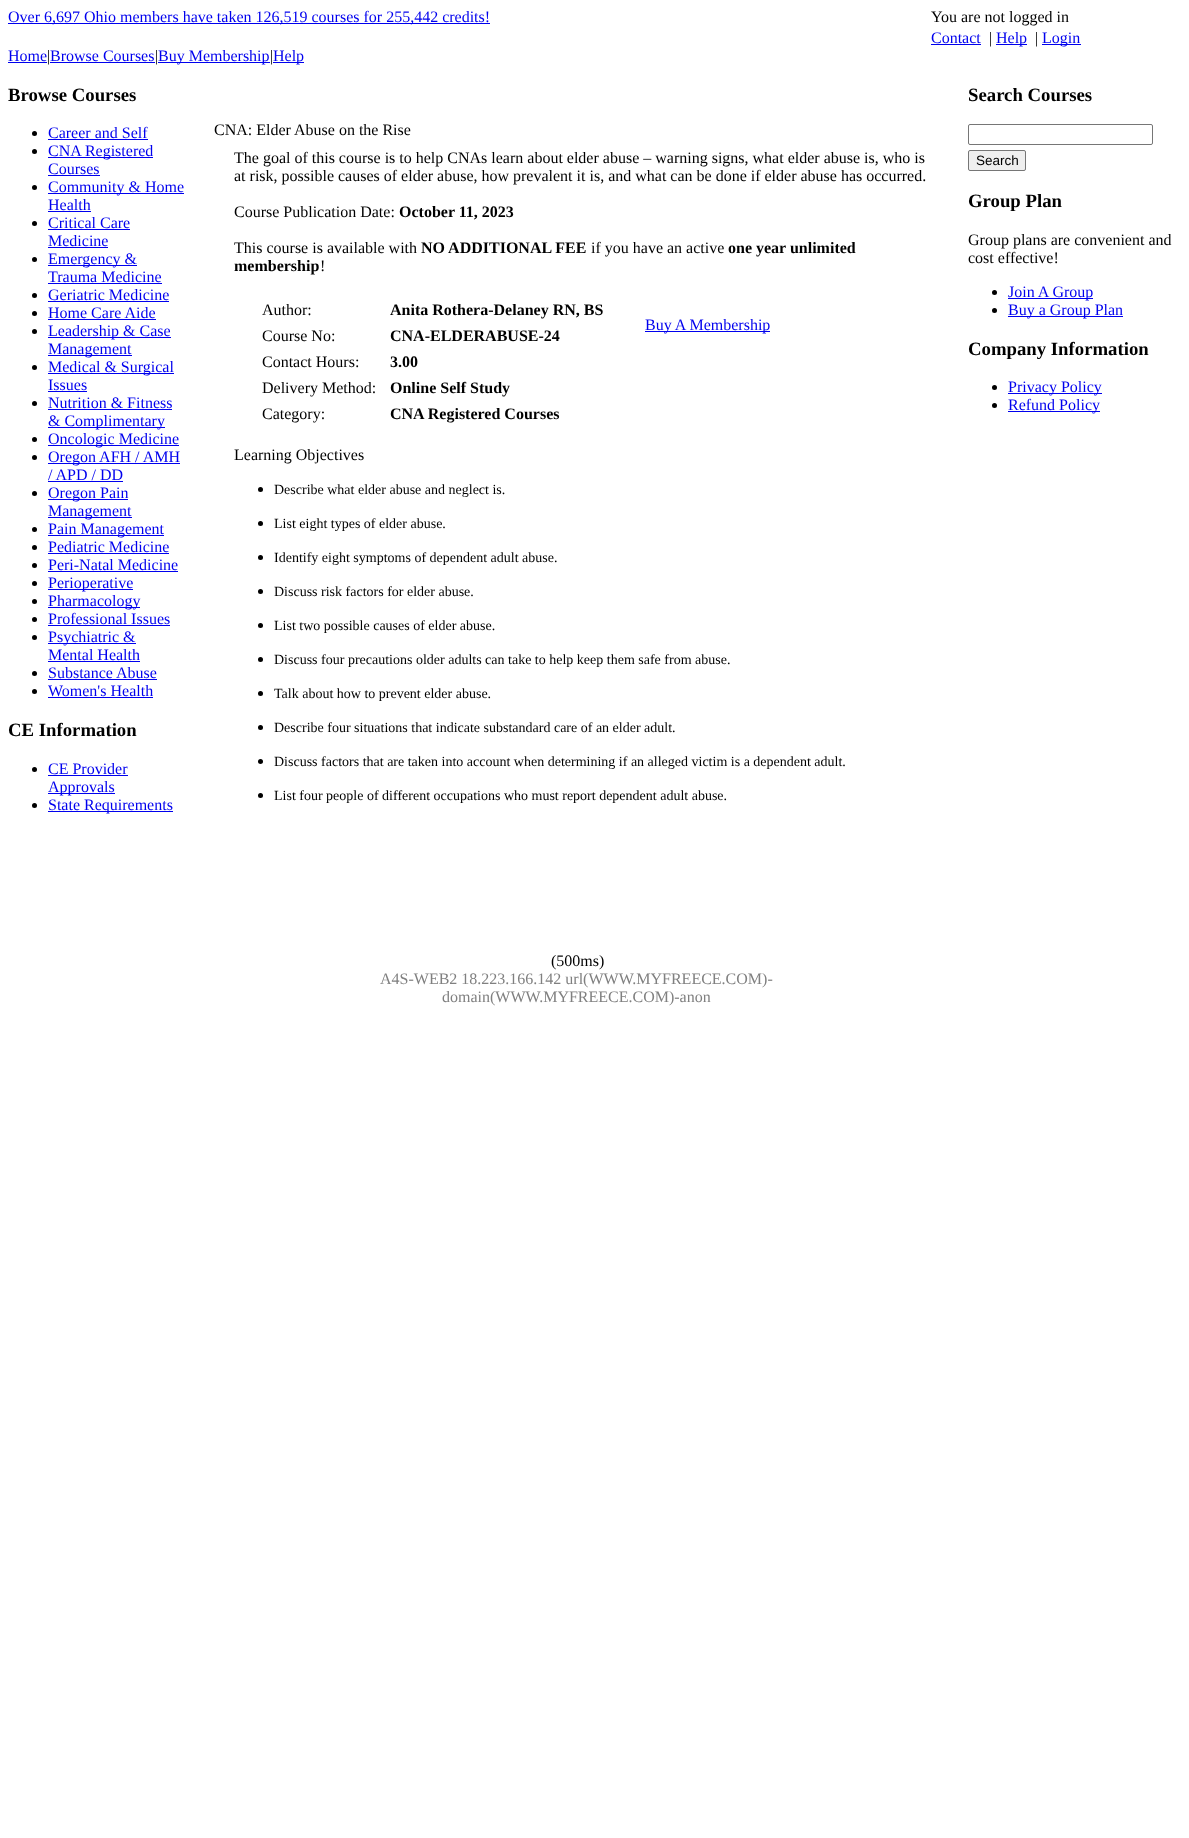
<svg xmlns="http://www.w3.org/2000/svg" width="1189" height="1838">
	<rect width="100%" height="100%" fill="#FFFFFF" />
	<rect x="8" y="23" width="482" height="1" fill="#0000EE" />
	<text x="8" y="22" font-family="Liberation Serif" font-size="16" fill="#0000EE">Over 6,697 Ohio members have taken 126,519 courses for 255,442 credits!</text>
	<text x="931" y="22" font-family="Liberation Serif" font-size="16" fill="#000000">You are not logged in</text>
	<text x="931" y="43" font-family="Liberation Serif" font-size="16" fill="#0000EE">Contact</text>
	<rect x="931" y="44" width="50" height="1" fill="#0000EE" />
	<text x="989" y="43" font-family="Liberation Serif" font-size="16" fill="#000000">|</text>
	<rect x="996" y="44" width="31" height="1" fill="#0000EE" />
	<text x="996" y="43" font-family="Liberation Serif" font-size="16" fill="#0000EE">Help</text>
	<text x="1035" y="43" font-family="Liberation Serif" font-size="16" fill="#000000">|</text>
	<rect x="1042" y="44" width="39" height="1" fill="#0000EE" />
	<g font-family="Liberation Serif" font-size="16" fill="#0000EE">
		<text x="1042" y="43">Login</text>
		<text x="8" y="61">Home</text>
	</g>
	<rect x="8" y="62" width="39" height="1" fill="#0000EE" />
	<text x="47" y="61" font-family="Liberation Serif" font-size="16" fill="#000000">|</text>
	<text x="50" y="61" font-family="Liberation Serif" font-size="16" fill="#0000EE">Browse Courses</text>
	<rect x="50" y="62" width="105" height="1" fill="#0000EE" />
	<text x="155" y="61" font-family="Liberation Serif" font-size="16" fill="#000000">|</text>
	<rect x="158" y="62" width="112" height="1" fill="#0000EE" />
	<text x="158" y="61" font-family="Liberation Serif" font-size="16" fill="#0000EE">Buy Membership</text>
	<text x="270" y="61" font-family="Liberation Serif" font-size="16" fill="#000000">|</text>
	<rect x="273" y="62" width="31" height="1" fill="#0000EE" />
	<text x="273" y="61" font-family="Liberation Serif" font-size="16" fill="#0000EE">Help</text>
	<text x="8" y="101" font-family="Liberation Serif" font-size="18.75" font-weight="700" fill="#000000">Browse Courses</text>
	<circle cx="34.5" cy="133.5" r="2.5" fill="#000000" />
	<text x="48" y="138" font-family="Liberation Serif" font-size="16" fill="#0000EE">Career and Self</text>
	<rect x="48" y="139" width="100" height="1" fill="#0000EE" />
	<circle cx="34.5" cy="151.5" r="2.5" fill="#000000" />
	<rect x="48" y="157" width="105" height="1" fill="#0000EE" />
	<g font-family="Liberation Serif" font-size="16" fill="#0000EE">
		<text x="48" y="156">CNA Registered</text>
		<text x="48" y="174">Courses</text>
	</g>
	<rect x="48" y="175" width="52" height="1" fill="#0000EE" />
	<circle cx="34.5" cy="187.5" r="2.5" fill="#000000" />
	<rect x="48" y="193" width="136" height="1" fill="#0000EE" />
	<g font-family="Liberation Serif" font-size="16" fill="#0000EE">
		<text x="48" y="192">Community &amp; Home</text>
		<text x="48" y="210">Health</text>
	</g>
	<rect x="48" y="211" width="43" height="1" fill="#0000EE" />
	<circle cx="34.5" cy="223.5" r="2.5" fill="#000000" />
	<text x="48" y="228" font-family="Liberation Serif" font-size="16" fill="#0000EE">Critical Care</text>
	<rect x="48" y="229" width="82" height="1" fill="#0000EE" />
	<text x="48" y="246" font-family="Liberation Serif" font-size="16" fill="#0000EE">Medicine</text>
	<rect x="48" y="247" width="60" height="1" fill="#0000EE" />
	<circle cx="34.5" cy="259.5" r="2.5" fill="#000000" />
	<rect x="48" y="265" width="89" height="1" fill="#0000EE" />
	<g font-family="Liberation Serif" font-size="16" fill="#0000EE">
		<text x="48" y="264">Emergency &amp;</text>
		<text x="48" y="282">Trauma Medicine</text>
	</g>
	<rect x="48" y="283" width="114" height="1" fill="#0000EE" />
	<circle cx="34.5" cy="295.5" r="2.5" fill="#000000" />
	<text x="48" y="300" font-family="Liberation Serif" font-size="16" fill="#0000EE">Geriatric Medicine</text>
	<rect x="48" y="301" width="121" height="1" fill="#0000EE" />
	<circle cx="34.5" cy="313.5" r="2.5" fill="#000000" />
	<text x="48" y="318" font-family="Liberation Serif" font-size="16" fill="#0000EE">Home Care Aide</text>
	<rect x="48" y="319" width="108" height="1" fill="#0000EE" />
	<circle cx="34.5" cy="331.5" r="2.5" fill="#000000" />
	<rect x="48" y="337" width="123" height="1" fill="#0000EE" />
	<text x="48" y="336" font-family="Liberation Serif" font-size="16" fill="#0000EE">Leadership &amp; Case</text>
	<rect x="48" y="355" width="84" height="1" fill="#0000EE" />
	<text x="48" y="354" font-family="Liberation Serif" font-size="16" fill="#0000EE">Management</text>
	<circle cx="34.5" cy="367.5" r="2.5" fill="#000000" />
	<rect x="48" y="373" width="126" height="1" fill="#0000EE" />
	<g font-family="Liberation Serif" font-size="16" fill="#0000EE">
		<text x="48" y="372">Medical &amp; Surgical</text>
		<text x="48" y="390">Issues</text>
	</g>
	<rect x="48" y="391" width="39" height="1" fill="#0000EE" />
	<circle cx="34.5" cy="403.5" r="2.5" fill="#000000" />
	<text x="48" y="408" font-family="Liberation Serif" font-size="16" fill="#0000EE">Nutrition &amp; Fitness</text>
	<rect x="48" y="409" width="124" height="1" fill="#0000EE" />
	<rect x="48" y="427" width="117" height="1" fill="#0000EE" />
	<text x="48" y="426" font-family="Liberation Serif" font-size="16" fill="#0000EE">&amp; Complimentary</text>
	<circle cx="34.5" cy="439.5" r="2.5" fill="#000000" />
	<rect x="48" y="445" width="131" height="1" fill="#0000EE" />
	<text x="48" y="444" font-family="Liberation Serif" font-size="16" fill="#0000EE">Oncologic Medicine</text>
	<circle cx="34.5" cy="457.5" r="2.5" fill="#000000" />
	<rect x="48" y="463" width="132" height="1" fill="#0000EE" />
	<g font-family="Liberation Serif" font-size="16" fill="#0000EE">
		<text x="48" y="462">Oregon AFH / AMH</text>
		<text x="48" y="480">/ APD / DD</text>
	</g>
	<rect x="48" y="481" width="75" height="1" fill="#0000EE" />
	<circle cx="34.5" cy="493.5" r="2.5" fill="#000000" />
	<rect x="48" y="499" width="80" height="1" fill="#0000EE" />
	<text x="48" y="498" font-family="Liberation Serif" font-size="16" fill="#0000EE">Oregon Pain</text>
	<rect x="48" y="517" width="84" height="1" fill="#0000EE" />
	<text x="48" y="516" font-family="Liberation Serif" font-size="16" fill="#0000EE">Management</text>
	<circle cx="34.5" cy="529.5" r="2.5" fill="#000000" />
	<rect x="48" y="535" width="116" height="1" fill="#0000EE" />
	<text x="48" y="534" font-family="Liberation Serif" font-size="16" fill="#0000EE">Pain Management</text>
	<circle cx="34.5" cy="547.5" r="2.5" fill="#000000" />
	<text x="48" y="552" font-family="Liberation Serif" font-size="16" fill="#0000EE">Pediatric Medicine</text>
	<rect x="48" y="553" width="121" height="1" fill="#0000EE" />
	<circle cx="34.5" cy="565.5" r="2.5" fill="#000000" />
	<text x="48" y="570" font-family="Liberation Serif" font-size="16" fill="#0000EE">Peri-Natal Medicine</text>
	<rect x="48" y="571" width="130" height="1" fill="#0000EE" />
	<circle cx="34.5" cy="583.5" r="2.5" fill="#000000" />
	<rect x="48" y="589" width="85" height="1" fill="#0000EE" />
	<text x="48" y="588" font-family="Liberation Serif" font-size="16" fill="#0000EE">Perioperative</text>
	<circle cx="34.5" cy="601.5" r="2.5" fill="#000000" />
	<rect x="48" y="607" width="92" height="1" fill="#0000EE" />
	<text x="48" y="606" font-family="Liberation Serif" font-size="16" fill="#0000EE">Pharmacology</text>
	<circle cx="34.5" cy="619.5" r="2.5" fill="#000000" />
	<text x="48" y="624" font-family="Liberation Serif" font-size="16" fill="#0000EE">Professional Issues</text>
	<rect x="48" y="625" width="122" height="1" fill="#0000EE" />
	<circle cx="34.5" cy="637.5" r="2.5" fill="#000000" />
	<rect x="48" y="643" width="88" height="1" fill="#0000EE" />
	<g font-family="Liberation Serif" font-size="16" fill="#0000EE">
		<text x="48" y="642">Psychiatric &amp;</text>
		<text x="48" y="660">Mental Health</text>
	</g>
	<rect x="48" y="661" width="92" height="1" fill="#0000EE" />
	<circle cx="34.5" cy="673.5" r="2.5" fill="#000000" />
	<text x="48" y="678" font-family="Liberation Serif" font-size="16" fill="#0000EE">Substance Abuse</text>
	<rect x="48" y="679" width="109" height="1" fill="#0000EE" />
	<circle cx="34.5" cy="691.5" r="2.5" fill="#000000" />
	<text x="48" y="696" font-family="Liberation Serif" font-size="16" fill="#0000EE">Women's Health</text>
	<rect x="48" y="697" width="105" height="1" fill="#0000EE" />
	<text x="8" y="736" font-family="Liberation Serif" font-size="18.75" font-weight="700" fill="#000000">CE Information</text>
	<circle cx="34.5" cy="769.5" r="2.5" fill="#000000" />
	<text x="48" y="774" font-family="Liberation Serif" font-size="16" fill="#0000EE">CE Provider</text>
	<rect x="48" y="775" width="80" height="1" fill="#0000EE" />
	<rect x="48" y="793" width="67" height="1" fill="#0000EE" />
	<text x="48" y="792" font-family="Liberation Serif" font-size="16" fill="#0000EE">Approvals</text>
	<circle cx="34.5" cy="805.5" r="2.5" fill="#000000" />
	<rect x="48" y="811" width="125" height="1" fill="#0000EE" />
	<text x="48" y="810" font-family="Liberation Serif" font-size="16" fill="#0000EE">State Requirements</text>
	<g font-family="Liberation Serif" font-size="16" fill="#000000">
		<text x="214" y="135">CNA: Elder Abuse on the Rise</text>
		<text x="234" y="163">The goal of this course is to help CNAs learn about elder abuse – warning signs, what elder abuse is, who is</text>
		<text x="234" y="181">at risk, possible causes of elder abuse, how prevalent it is, and what can be done if elder abuse has occurred.</text>
		<text x="234" y="217">Course Publication Date:</text>
	</g>
	<text x="399" y="217" font-family="Liberation Serif" font-size="16" font-weight="700" fill="#000000">October 11, 2023</text>
	<text x="234" y="253" font-family="Liberation Serif" font-size="16" fill="#000000">This course is available with</text>
	<text x="421" y="253" font-family="Liberation Serif" font-size="16" font-weight="700" fill="#000000">NO ADDITIONAL FEE</text>
	<text x="591" y="253" font-family="Liberation Serif" font-size="16" fill="#000000">if you have an active</text>
	<g font-family="Liberation Serif" font-size="16" font-weight="700" fill="#000000">
		<text x="728" y="253">one year unlimited</text>
		<text x="234" y="271">membership</text>
	</g>
	<g font-family="Liberation Serif" font-size="16" fill="#000000">
		<text x="320" y="271">!</text>
		<text x="262" y="315">Author:</text>
	</g>
	<text x="390" y="315" font-family="Liberation Serif" font-size="16" font-weight="700" fill="#000000">Anita Rothera-Delaney RN, BS</text>
	<text x="262" y="341" font-family="Liberation Serif" font-size="16" fill="#000000">Course No:</text>
	<text x="390" y="341" font-family="Liberation Serif" font-size="16" font-weight="700" fill="#000000">CNA-ELDERABUSE-24</text>
	<text x="262" y="367" font-family="Liberation Serif" font-size="16" fill="#000000">Contact Hours:</text>
	<text x="390" y="367" font-family="Liberation Serif" font-size="16" font-weight="700" fill="#000000">3.00</text>
	<text x="262" y="393" font-family="Liberation Serif" font-size="16" fill="#000000">Delivery Method:</text>
	<text x="390" y="393" font-family="Liberation Serif" font-size="16" font-weight="700" fill="#000000">Online Self Study</text>
	<text x="262" y="419" font-family="Liberation Serif" font-size="16" fill="#000000">Category:</text>
	<text x="390" y="419" font-family="Liberation Serif" font-size="16" font-weight="700" fill="#000000">CNA Registered Courses</text>
	<rect x="645" y="331" width="125" height="1" fill="#0000EE" />
	<text x="645" y="330" font-family="Liberation Serif" font-size="16" fill="#0000EE">Buy A Membership</text>
	<text x="234" y="460" font-family="Liberation Serif" font-size="16" fill="#000000">Learning Objectives</text>
	<circle cx="260.5" cy="489.5" r="2.5" fill="#000000" />
	<text x="274" y="494" font-family="Liberation Serif" font-size="14" fill="#000000">Describe what elder abuse and neglect is.</text>
	<circle cx="260.5" cy="523.5" r="2.5" fill="#000000" />
	<text x="274" y="528" font-family="Liberation Serif" font-size="14" fill="#000000">List eight types of elder abuse.</text>
	<circle cx="260.5" cy="557.5" r="2.5" fill="#000000" />
	<text x="274" y="562" font-family="Liberation Serif" font-size="14" fill="#000000">Identify eight symptoms of dependent adult abuse.</text>
	<circle cx="260.5" cy="591.5" r="2.5" fill="#000000" />
	<text x="274" y="596" font-family="Liberation Serif" font-size="14" fill="#000000">Discuss risk factors for elder abuse.</text>
	<circle cx="260.5" cy="625.5" r="2.5" fill="#000000" />
	<text x="274" y="630" font-family="Liberation Serif" font-size="14" fill="#000000">List two possible causes of elder abuse.</text>
	<circle cx="260.5" cy="659.5" r="2.5" fill="#000000" />
	<text x="274" y="664" font-family="Liberation Serif" font-size="14" fill="#000000">Discuss four precautions older adults can take to help keep them safe from abuse.</text>
	<circle cx="260.5" cy="693.5" r="2.5" fill="#000000" />
	<text x="274" y="698" font-family="Liberation Serif" font-size="14" fill="#000000">Talk about how to prevent elder abuse.</text>
	<circle cx="260.5" cy="727.5" r="2.5" fill="#000000" />
	<text x="274" y="732" font-family="Liberation Serif" font-size="14" fill="#000000">Describe four situations that indicate substandard care of an elder adult.</text>
	<circle cx="260.5" cy="761.5" r="2.5" fill="#000000" />
	<text x="274" y="766" font-family="Liberation Serif" font-size="14" fill="#000000">Discuss factors that are taken into account when determining if an alleged victim is a dependent adult.</text>
	<circle cx="260.5" cy="795.5" r="2.5" fill="#000000" />
	<text x="274" y="800" font-family="Liberation Serif" font-size="14" fill="#000000">List four people of different occupations who must report dependent adult abuse.</text>
	<text x="551" y="966" font-family="Liberation Serif" font-size="16" fill="#000000">(500ms)</text>
	<g font-family="Liberation Serif" font-size="16" fill="#808080">
		<text x="380" y="984">A4S-WEB2 18.223.166.142 url(WWW.MYFREECE.COM)-</text>
		<text x="442" y="1002">domain(WWW.MYFREECE.COM)-anon</text>
	</g>
	<text x="968" y="101" font-family="Liberation Serif" font-size="18.75" font-weight="700" fill="#000000">Search Courses</text>
	<rect x="968.5" y="124.5" width="184" height="20" rx="1.5" fill="none" stroke="#767676" />
	<rect x="968.5" y="150.5" width="57" height="20" rx="1.5" fill="#EFEFEF" stroke="#767676" />
	<text x="976" y="165" font-family="Liberation Sans" font-size="13.5" fill="#000000">Search</text>
	<text x="968" y="207" font-family="Liberation Serif" font-size="18.75" font-weight="700" fill="#000000">Group Plan</text>
	<g font-family="Liberation Serif" font-size="16" fill="#000000">
		<text x="968" y="245">Group plans are convenient and</text>
		<text x="968" y="263">cost effective!</text>
	</g>
	<circle cx="994.5" cy="292.5" r="2.5" fill="#000000" />
	<rect x="1008" y="298" width="85" height="1" fill="#0000EE" />
	<text x="1008" y="297" font-family="Liberation Serif" font-size="16" fill="#0000EE">Join A Group</text>
	<circle cx="994.5" cy="310.5" r="2.5" fill="#000000" />
	<rect x="1008" y="316" width="115" height="1" fill="#0000EE" />
	<text x="1008" y="315" font-family="Liberation Serif" font-size="16" fill="#0000EE">Buy a Group Plan</text>
	<text x="968" y="355" font-family="Liberation Serif" font-size="18.75" font-weight="700" fill="#000000">Company Information</text>
	<circle cx="994.5" cy="387.5" r="2.5" fill="#000000" />
	<rect x="1008" y="393" width="94" height="1" fill="#0000EE" />
	<text x="1008" y="392" font-family="Liberation Serif" font-size="16" fill="#0000EE">Privacy Policy</text>
	<circle cx="994.5" cy="405.5" r="2.5" fill="#000000" />
	<rect x="1008" y="411" width="92" height="1" fill="#0000EE" />
	<text x="1008" y="410" font-family="Liberation Serif" font-size="16" fill="#0000EE">Refund Policy</text>
</svg>
